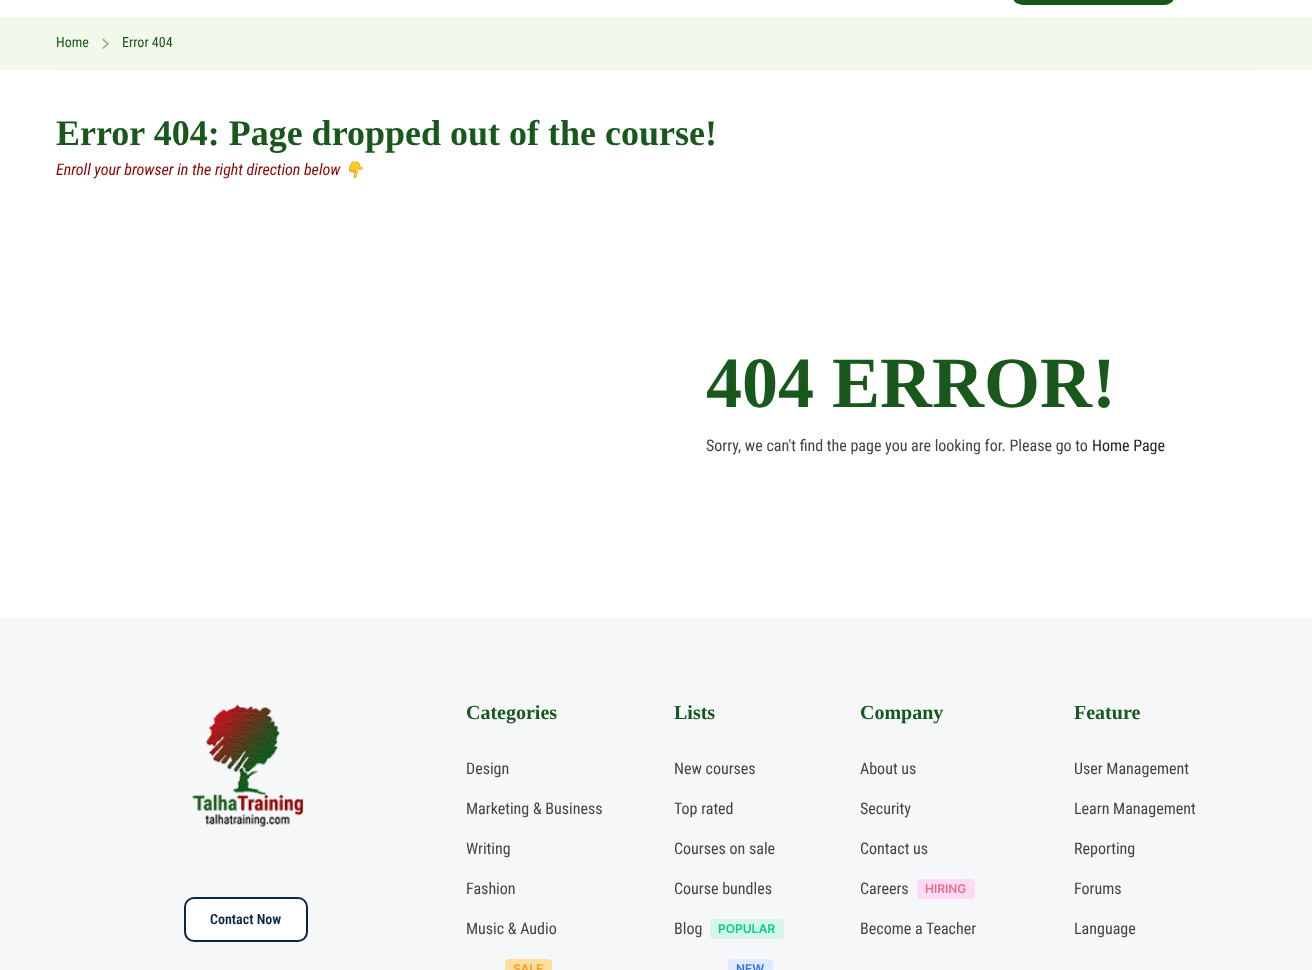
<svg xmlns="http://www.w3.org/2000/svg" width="1312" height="970">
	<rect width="100%" height="100%" fill="#FFFFFF" />
	<rect x="1013" y="-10" width="161" height="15" rx="10" fill="#19581C" />
	<rect x="0" y="17" width="1312" height="53" fill="#F2F9EA" />
	<rect x="56" y="69" width="1200" height="1" fill="#EEEEEE" />
	<text x="56" y="47" font-family="Roboto Condensed" font-size="14" fill="#19581C">Home</text>
	<image x="102" y="38" width="7" height="11" href="assets/img1.png" />
	<text x="122" y="47" font-family="Roboto Condensed" font-size="14" fill="#19581C">Error 404</text>
	<text x="56" y="145" font-family="Liberation Serif" font-size="36" font-weight="700" fill="#19581C">Error 404: Page dropped out of the course!</text>
	<text x="56" y="175" font-family="Roboto Condensed" font-size="16" font-style="italic" fill="#8D0403">Enroll your browser in the right direction below</text>
	<text x="344" y="175" font-family="Noto Color Emoji" font-size="16" font-style="italic" fill="#8D0403">👇</text>
	<text x="706" y="407" font-family="Liberation Serif" font-size="72" font-weight="700" fill="#19581C">404 ERROR!</text>
	<text x="706" y="451" font-family="Roboto Condensed" font-size="16" fill="#444444">Sorry, we can't find the page you are looking for. Please go to</text>
	<text x="1092" y="451" font-family="Roboto Condensed" font-size="16" fill="#212427">Home Page</text>
	<rect x="0" y="618" width="1312" height="352" fill="#F5F7F8" />
	<image x="192" y="704" width="112" height="123" href="assets/img2.png" />
	<rect x="185" y="898" width="122" height="43" rx="9" fill="#FFFFFF" stroke="#082645" stroke-width="2" />
	<text x="210" y="924" font-family="Roboto Condensed" font-size="14" font-weight="600" fill="#082645">Contact Now</text>
	<text x="466" y="719" font-family="Liberation Serif" font-size="20" font-weight="700" fill="#19581C">Categories</text>
	<g font-family="Roboto Condensed" font-size="16" fill="#444444">
		<text x="466" y="774">Design</text>
		<text x="466" y="814">Marketing &amp; Business</text>
		<text x="466" y="854">Writing</text>
		<text x="466" y="894">Fashion</text>
		<text x="466" y="934">Music &amp; Audio</text>
	</g>
	<image x="505" y="959" width="47" height="11" href="assets/img3.png" />
	<text x="674" y="719" font-family="Liberation Serif" font-size="20" font-weight="700" fill="#19581C">Lists</text>
	<g font-family="Roboto Condensed" font-size="16" fill="#444444">
		<text x="674" y="774">New courses</text>
		<text x="674" y="814">Top rated</text>
		<text x="674" y="854">Courses on sale</text>
		<text x="674" y="894">Course bundles</text>
		<text x="674" y="934">Blog</text>
	</g>
	<image x="710" y="919" width="74" height="20" href="assets/img4.png" />
	<image x="728" y="959" width="45" height="11" href="assets/img5.png" />
	<text x="860" y="719" font-family="Liberation Serif" font-size="20" font-weight="700" fill="#19581C">Company</text>
	<g font-family="Roboto Condensed" font-size="16" fill="#444444">
		<text x="860" y="774">About us</text>
		<text x="860" y="814">Security</text>
		<text x="860" y="854">Contact us</text>
		<text x="860" y="894">Careers</text>
	</g>
	<image x="917" y="879" width="58" height="20" href="assets/img6.png" />
	<text x="860" y="934" font-family="Roboto Condensed" font-size="16" fill="#444444">Become a Teacher</text>
	<text x="1074" y="719" font-family="Liberation Serif" font-size="20" font-weight="700" fill="#19581C">Feature</text>
	<g font-family="Roboto Condensed" font-size="16" fill="#444444">
		<text x="1074" y="774">User Management</text>
		<text x="1074" y="814">Learn Management</text>
		<text x="1074" y="854">Reporting</text>
		<text x="1074" y="894">Forums</text>
		<text x="1074" y="934">Language</text>
	</g>
</svg>
